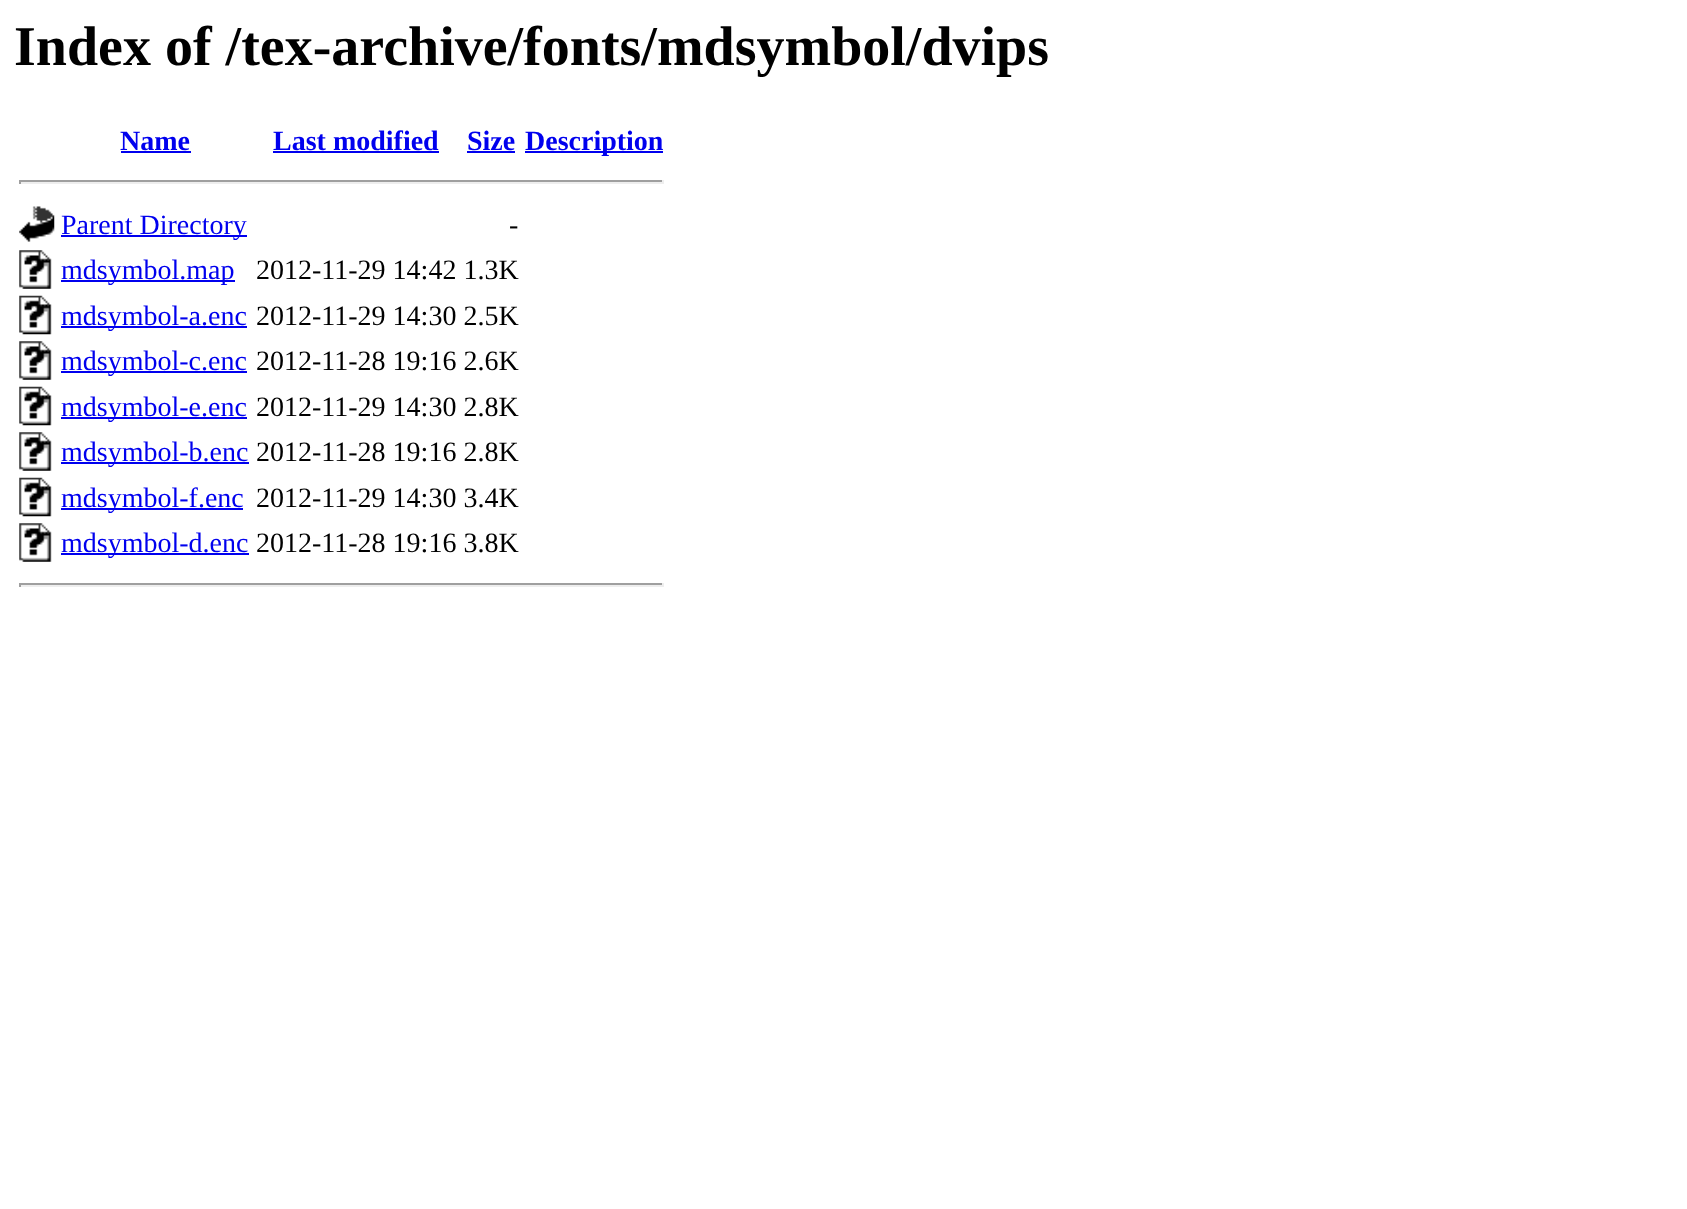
<svg xmlns="http://www.w3.org/2000/svg" width="1687" height="1209">
	<rect width="100%" height="100%" fill="#FFFFFF" />
	<text x="14" y="65" font-family="Liberation Serif" font-size="56" font-weight="700" fill="#000000">Index of /tex-archive/fonts/mdsymbol/dvips</text>
	<text x="120" y="150" font-family="Liberation Serif" font-size="28" font-weight="700" fill="#0000EE">Name</text>
	<rect x="121" y="151" width="70" height="2" fill="#0000EE" />
	<text x="273" y="150" font-family="Liberation Serif" font-size="28" font-weight="700" fill="#0000EE">Last modified</text>
	<rect x="273" y="151" width="166" height="2" fill="#0000EE" />
	<text x="467" y="150" font-family="Liberation Serif" font-size="28" font-weight="700" fill="#0000EE">Size</text>
	<rect x="467" y="151" width="48" height="2" fill="#0000EE" />
	<rect x="525" y="151" width="138" height="2" fill="#0000EE" />
	<text x="525" y="150" font-family="Liberation Serif" font-size="28" font-weight="700" fill="#0000EE">Description</text>
	<rect x="19" y="180" width="644" height="2" fill="#9F9F9F" />
	<rect x="662" y="180" width="2" height="4" fill="#EEEEEE" />
	<rect x="19" y="182" width="644" height="2" fill="#EEEEEE" />
	<rect x="19" y="180" width="2" height="4" fill="#9F9F9F" />
	<image x="19" y="206" width="36" height="36" href="assets/img1.png" />
	<rect x="61" y="235" width="186" height="2" fill="#0000EE" />
	<text x="61" y="234" font-family="Liberation Serif" font-size="28" fill="#0000EE">Parent Directory</text>
	<text x="509" y="234" font-family="Liberation Serif" font-size="28" fill="#000000">-</text>
	<image x="19" y="250" width="33" height="39" href="assets/img2.png" />
	<rect x="61" y="280" width="174" height="2" fill="#0000EE" />
	<text x="61" y="279" font-family="Liberation Serif" font-size="28" fill="#0000EE">mdsymbol.map</text>
	<text x="256" y="279" font-family="Liberation Serif" font-size="28" fill="#000000">2012-11-29 14:42 1.3K</text>
	<image x="19" y="295" width="33" height="40" href="assets/img3.png" />
	<rect x="61" y="326" width="186" height="2" fill="#0000EE" />
	<text x="61" y="325" font-family="Liberation Serif" font-size="28" fill="#0000EE">mdsymbol-a.enc</text>
	<text x="256" y="325" font-family="Liberation Serif" font-size="28" fill="#000000">2012-11-29 14:30 2.5K</text>
	<image x="19" y="341" width="33" height="39" href="assets/img2.png" />
	<rect x="61" y="371" width="186" height="2" fill="#0000EE" />
	<text x="61" y="370" font-family="Liberation Serif" font-size="28" fill="#0000EE">mdsymbol-c.enc</text>
	<text x="256" y="370" font-family="Liberation Serif" font-size="28" fill="#000000">2012-11-28 19:16 2.6K</text>
	<image x="19" y="386" width="33" height="40" href="assets/img3.png" />
	<rect x="61" y="417" width="186" height="2" fill="#0000EE" />
	<text x="61" y="416" font-family="Liberation Serif" font-size="28" fill="#0000EE">mdsymbol-e.enc</text>
	<text x="256" y="416" font-family="Liberation Serif" font-size="28" fill="#000000">2012-11-29 14:30 2.8K</text>
	<image x="19" y="432" width="33" height="39" href="assets/img2.png" />
	<rect x="61" y="462" width="188" height="2" fill="#0000EE" />
	<text x="61" y="461" font-family="Liberation Serif" font-size="28" fill="#0000EE">mdsymbol-b.enc</text>
	<text x="256" y="461" font-family="Liberation Serif" font-size="28" fill="#000000">2012-11-28 19:16 2.8K</text>
	<image x="19" y="477" width="33" height="40" href="assets/img3.png" />
	<rect x="61" y="508" width="182" height="2" fill="#0000EE" />
	<text x="61" y="507" font-family="Liberation Serif" font-size="28" fill="#0000EE">mdsymbol-f.enc</text>
	<text x="256" y="507" font-family="Liberation Serif" font-size="28" fill="#000000">2012-11-29 14:30 3.4K</text>
	<image x="19" y="523" width="33" height="39" href="assets/img2.png" />
	<rect x="61" y="553" width="188" height="2" fill="#0000EE" />
	<text x="61" y="552" font-family="Liberation Serif" font-size="28" fill="#0000EE">mdsymbol-d.enc</text>
	<text x="256" y="552" font-family="Liberation Serif" font-size="28" fill="#000000">2012-11-28 19:16 3.8K</text>
	<rect x="19" y="583" width="644" height="2" fill="#9F9F9F" />
	<rect x="662" y="583" width="2" height="4" fill="#EEEEEE" />
	<rect x="19" y="585" width="644" height="2" fill="#EEEEEE" />
	<rect x="19" y="583" width="2" height="4" fill="#9F9F9F" />
</svg>
